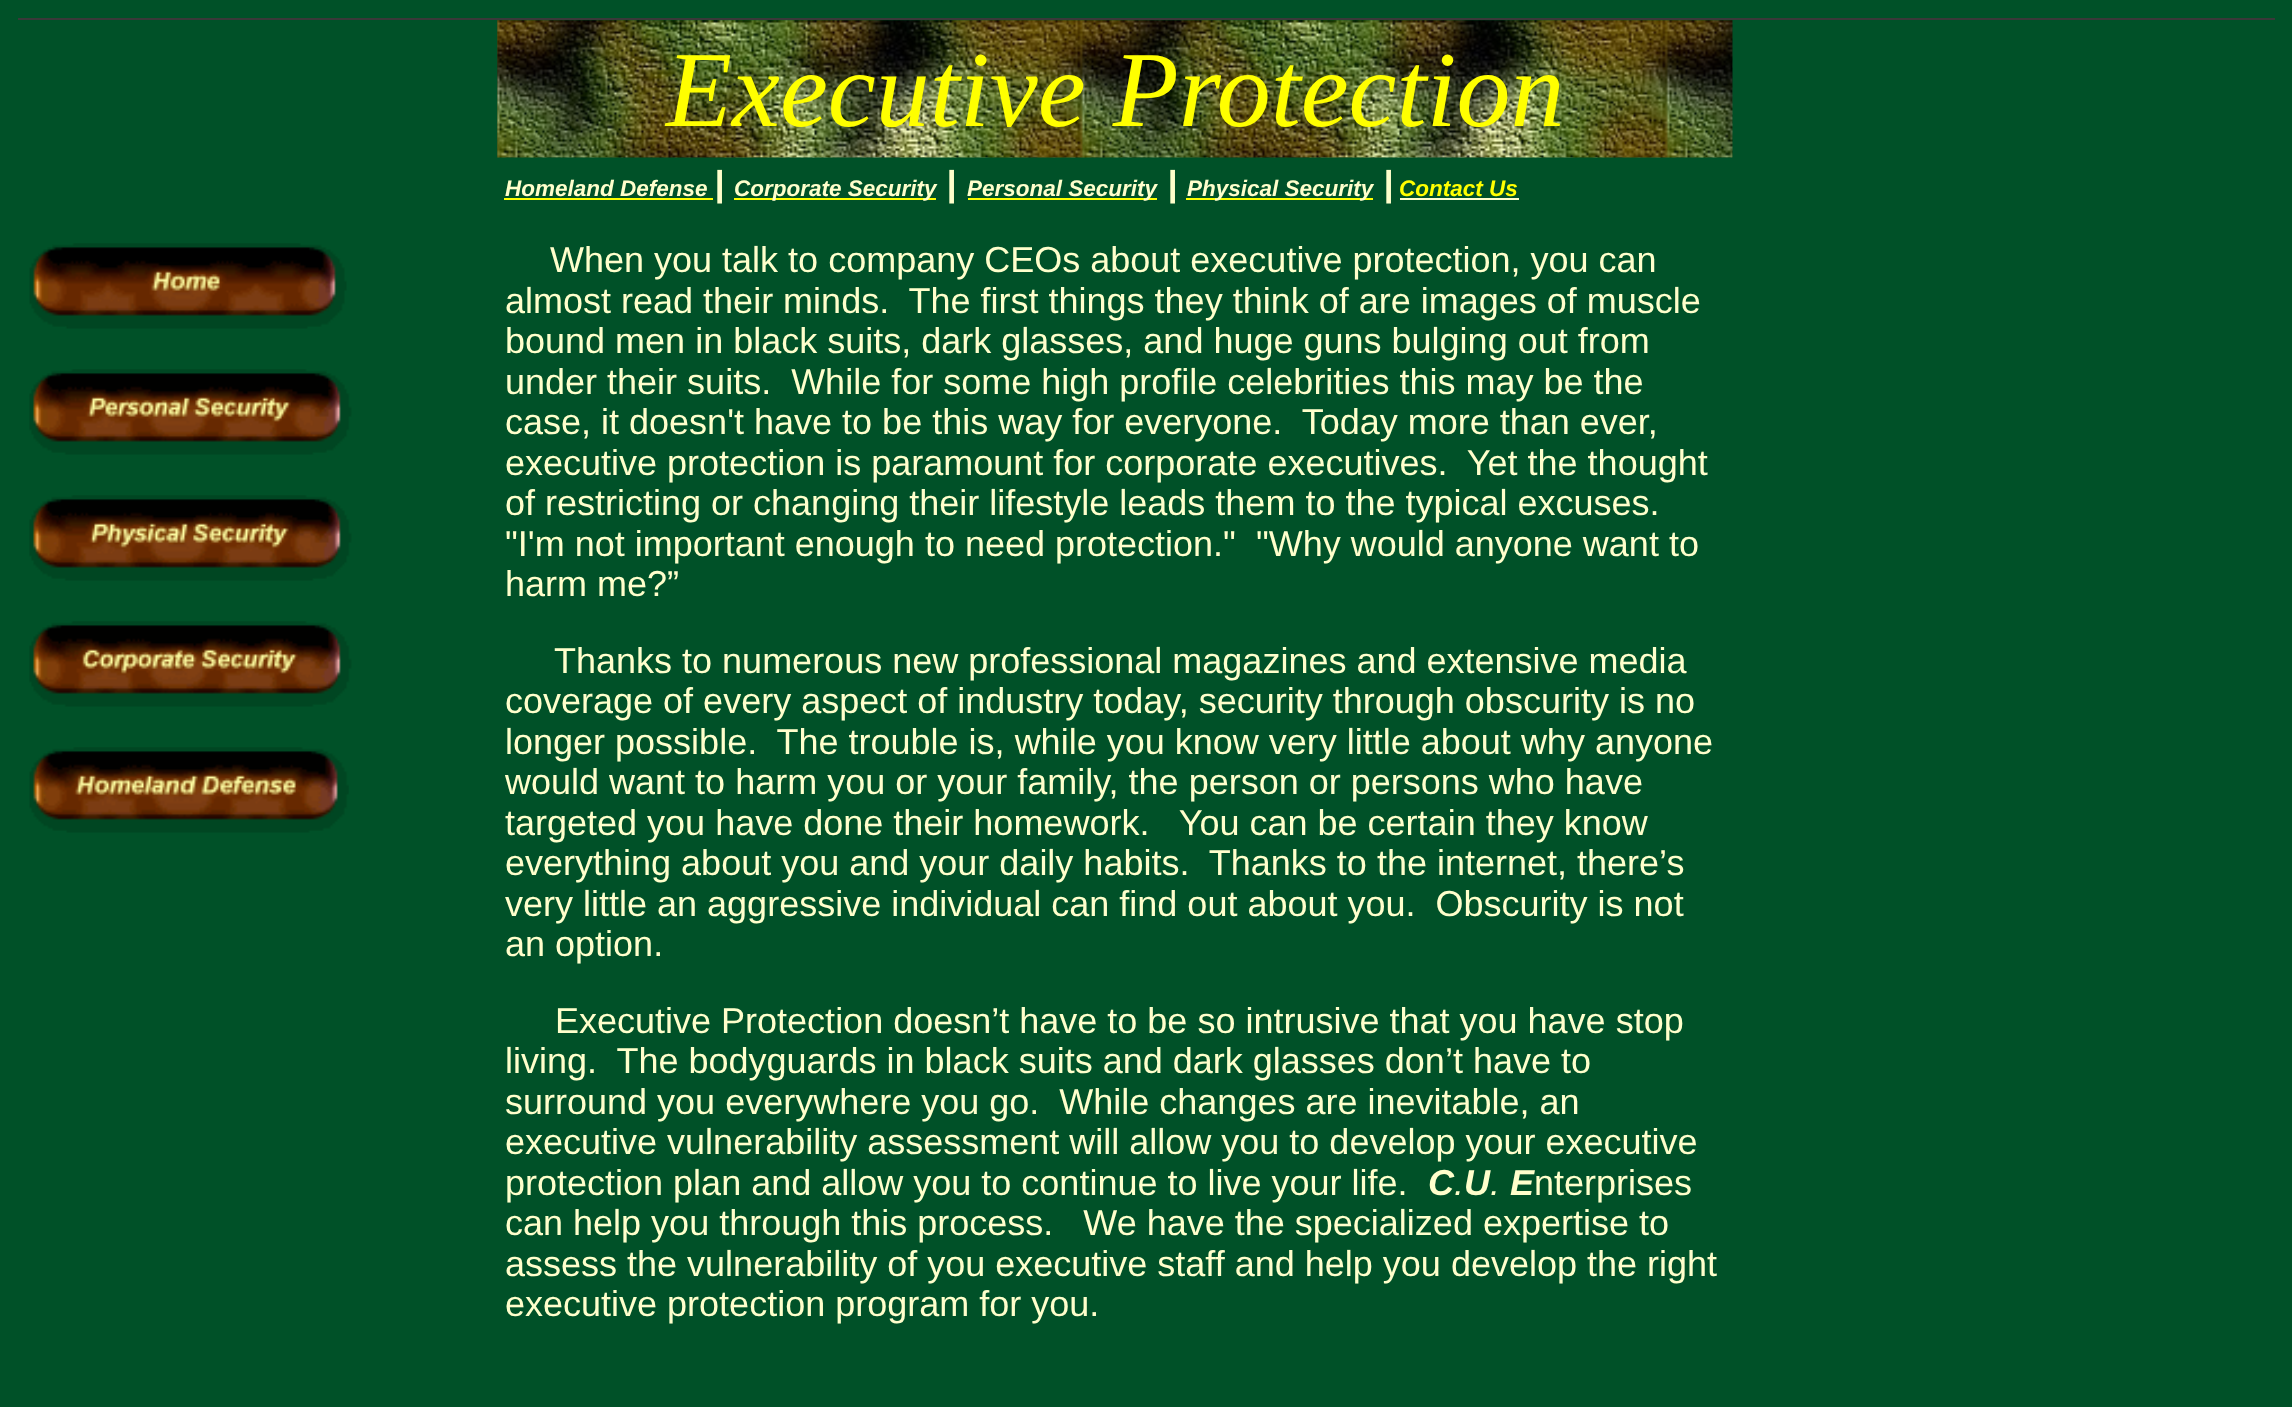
<svg xmlns="http://www.w3.org/2000/svg" width="2292" height="1407">
	<rect width="100%" height="100%" fill="#005128" />
	<rect x="18" y="18" width="2257" height="2" fill="#393939" />
	<image x="497" y="20" width="1236" height="138" href="assets/img1.png" />
	<text x="666" y="126" font-family="Liberation Serif" font-size="108" font-style="italic" fill="#FFFF00">Executive Protection</text>
	<image x="29" y="243" width="318" height="86" href="assets/img2.png" />
	<image x="29" y="369" width="323" height="86" href="assets/img3.png" />
	<image x="29" y="495" width="323" height="86" href="assets/img4.png" />
	<image x="29" y="621" width="323" height="86" href="assets/img5.png" />
	<image x="29" y="747" width="320" height="86" href="assets/img6.png" />
	<text x="505" y="196" font-family="Liberation Sans" font-size="22.5" font-weight="700" font-style="italic" fill="#FFFFCC">Homeland Defense</text>
	<rect x="504" y="198" width="209" height="2" fill="#FFFF00" />
	<text x="714" y="196" font-family="Liberation Sans" font-size="36" font-weight="700" font-style="italic" fill="#FFFFCC">|</text>
	<rect x="734" y="198" width="202" height="2" fill="#FFFF00" />
	<text x="734" y="196" font-family="Liberation Sans" font-size="22.5" font-weight="700" font-style="italic" fill="#FFFFCC">Corporate Security</text>
	<text x="946" y="196" font-family="Liberation Sans" font-size="36" font-weight="700" font-style="italic" fill="#FFFFCC">|</text>
	<rect x="968" y="198" width="189" height="2" fill="#FFFF00" />
	<text x="967" y="196" font-family="Liberation Sans" font-size="22.5" font-weight="700" font-style="italic" fill="#FFFFCC">Personal Security</text>
	<text x="1167" y="196" font-family="Liberation Sans" font-size="36" font-weight="700" font-style="italic" fill="#FFFFCC">|</text>
	<rect x="1186" y="198" width="187" height="2" fill="#FFFF00" />
	<text x="1187" y="196" font-family="Liberation Sans" font-size="22.5" font-weight="700" font-style="italic" fill="#FFFFCC">Physical Security</text>
	<text x="1383" y="196" font-family="Liberation Sans" font-size="36" font-weight="700" font-style="italic" fill="#FFFFCC">|</text>
	<text x="1399" y="196" font-family="Liberation Sans" font-size="22.5" font-weight="700" font-style="italic" fill="#FFFF00">Contact Us</text>
	<rect x="1400" y="198" width="119" height="2" fill="#FFFFCC" />
	<g font-family="Liberation Sans" font-size="36" fill="#FFFFCC">
		<text x="550" y="272">When you talk to company CEOs about executive protection, you can</text>
		<text x="505" y="313" xml:space="preserve">almost read their minds.  The first things they think of are images of muscle</text>
		<text x="505" y="353">bound men in black suits, dark glasses, and huge guns bulging out from</text>
		<text x="505" y="394" xml:space="preserve">under their suits.  While for some high profile celebrities this may be the</text>
		<text x="505" y="434" xml:space="preserve">case, it doesn't have to be this way for everyone.  Today more than ever,</text>
		<text x="505" y="475" xml:space="preserve">executive protection is paramount for corporate executives.  Yet the thought</text>
		<text x="505" y="515">of restricting or changing their lifestyle leads them to the typical excuses.</text>
		<text x="505" y="556" xml:space="preserve">"I'm not important enough to need protection."  "Why would anyone want to</text>
		<text x="505" y="596">harm me?”</text>
		<text x="554" y="673">Thanks to numerous new professional magazines and extensive media</text>
		<text x="505" y="713">coverage of every aspect of industry today, security through obscurity is no</text>
		<text x="505" y="754" xml:space="preserve">longer possible.  The trouble is, while you know very little about why anyone</text>
		<text x="505" y="794">would want to harm you or your family, the person or persons who have</text>
		<text x="505" y="835" xml:space="preserve">targeted you have done their homework.   You can be certain they know</text>
		<text x="505" y="875" xml:space="preserve">everything about you and your daily habits.  Thanks to the internet, there’s</text>
		<text x="505" y="916" xml:space="preserve">very little an aggressive individual can find out about you.  Obscurity is not</text>
		<text x="505" y="956">an option.</text>
		<text x="555" y="1033">Executive Protection doesn’t have to be so intrusive that you have stop</text>
		<text x="505" y="1073" xml:space="preserve">living.  The bodyguards in black suits and dark glasses don’t have to</text>
		<text x="505" y="1114" xml:space="preserve">surround you everywhere you go.  While changes are inevitable, an</text>
		<text x="505" y="1154">executive vulnerability assessment will allow you to develop your executive</text>
		<text x="505" y="1195">protection plan and allow you to continue to live your life.</text>
	</g>
	<g font-family="Liberation Sans" font-size="36" font-weight="700" font-style="italic" fill="#FFFFCC">
		<text x="1428" y="1195">C U</text>
		<text x="1510" y="1195">E</text>
	</g>
	<text x="1534" y="1195" font-family="Liberation Sans" font-size="36" fill="#FFFFCC">nterprises</text>
	<g font-family="Liberation Sans" font-size="36" font-style="italic" fill="#FFFFCC">
		<text x="1454" y="1195">.</text>
		<text x="1490" y="1195">.</text>
	</g>
	<g font-family="Liberation Sans" font-size="36" fill="#FFFFCC">
		<text x="505" y="1235" xml:space="preserve">can help you through this process.   We have the specialized expertise to</text>
		<text x="505" y="1276">assess the vulnerability of you executive staff and help you develop the right</text>
		<text x="505" y="1316">executive protection program for you.</text>
	</g>
</svg>
